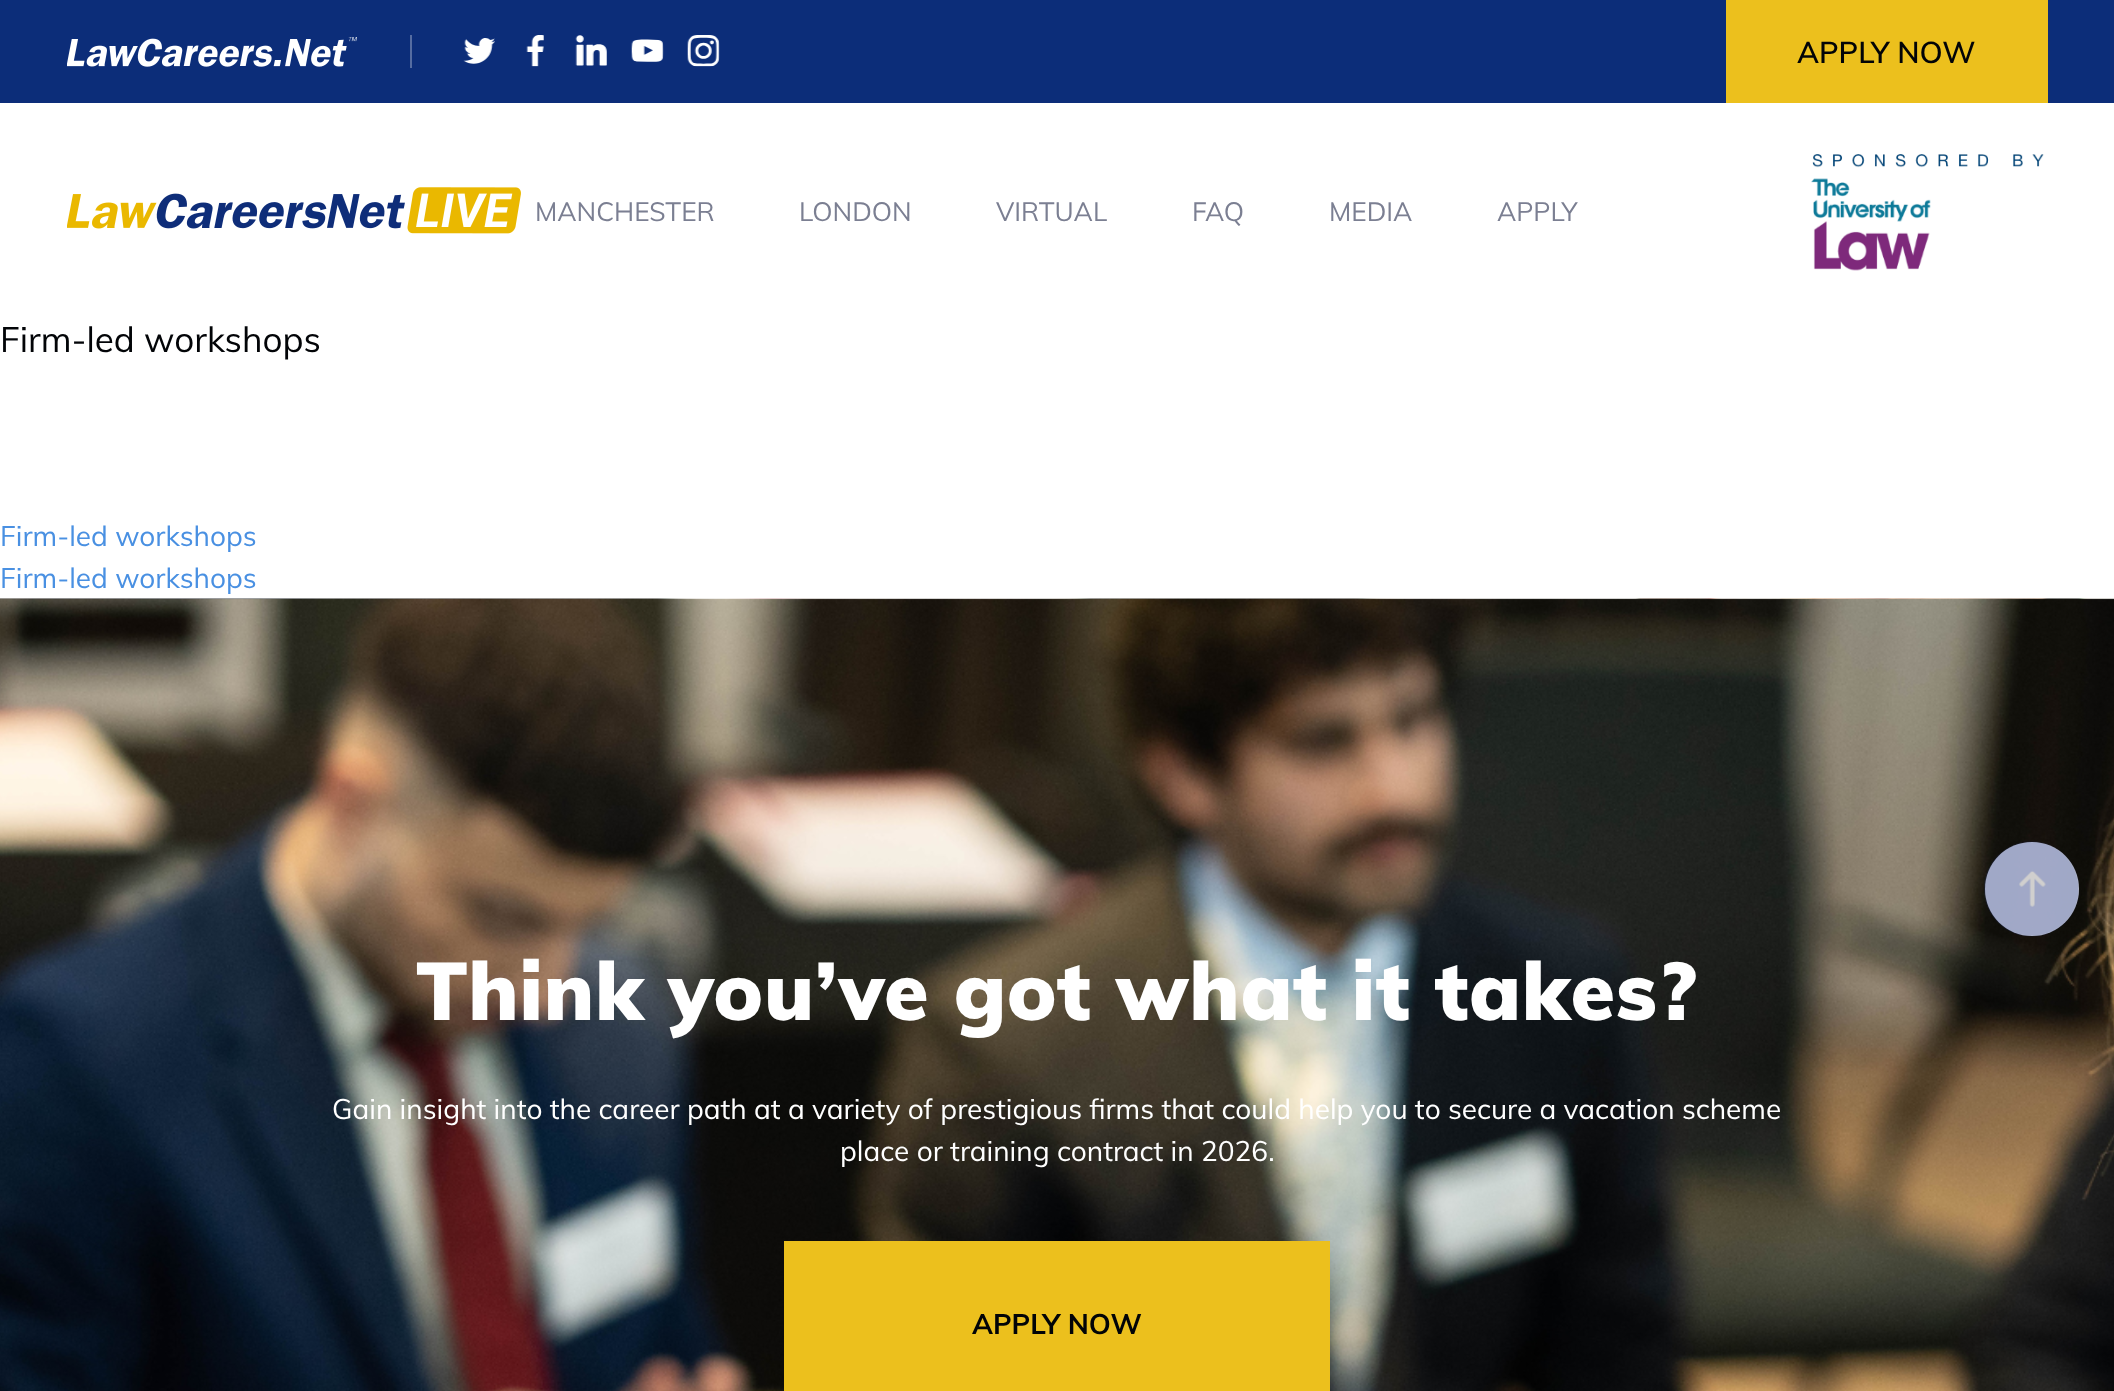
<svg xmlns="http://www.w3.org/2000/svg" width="2114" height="1391">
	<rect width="100%" height="100%" fill="#FFFFFF" />
	<rect x="0" y="0" width="2114" height="103" fill="#0C2D79" />
	<image x="67" y="37" width="290" height="30" href="assets/img1.png" />
	<rect x="410" y="35" width="2" height="33" fill="#556CA1" />
	<image x="463" y="38" width="32" height="26" href="assets/img2.png" />
	<image x="526" y="35" width="18" height="32" href="assets/img3.png" />
	<image x="575" y="35" width="32" height="31" href="assets/img4.png" />
	<image x="631" y="39" width="33" height="23" href="assets/img5.png" />
	<image x="687" y="35" width="33" height="32" href="assets/img6.png" />
	<rect x="1726" y="0" width="322" height="103" fill="#ECC01D" />
	<text x="1797" y="63" font-family="Muli" font-size="29.75" font-weight="600" fill="#020407">APPLY NOW</text>
	<image x="67" y="187" width="454" height="47" href="assets/img7.png" />
	<g font-family="Muli" font-size="26.25" fill="#7B7F92">
		<text x="535" y="221">MANCHESTER</text>
		<text x="799" y="221">LONDON</text>
		<text x="996" y="221">VIRTUAL</text>
		<text x="1192" y="221">FAQ</text>
		<text x="1329" y="221">MEDIA</text>
		<text x="1497" y="221">APPLY</text>
	</g>
	<image x="1811" y="154" width="233" height="117" href="assets/img8.png" />
	<text x="0" y="352" font-family="Muli" font-size="35" fill="#020407">Firm-led workshops</text>
	<g font-family="Muli" font-size="28" fill="#4990E2">
		<text x="0" y="546">Firm-led workshops</text>
		<text x="0" y="588">Firm-led workshops</text>
	</g>
	<image x="0" y="598" width="2114" height="793" href="assets/img10.png" />
	<circle cx="2032" cy="889" r="47" fill="#FFFFFF" fill-opacity="0.8" />
	<image x="1984" y="841" width="96" height="96" href="assets/img9.png" />
	<text x="416" y="1020" font-family="Muli" font-size="80.8" font-weight="900" letter-spacing="0.8" fill="#FFFFFF">Think you’ve got what it takes?</text>
	<g font-family="Muli" font-size="28" fill="#FFFFFF">
		<text x="332" y="1119">Gain insight into the career path at a variety of prestigious firms that could help you to secure a vacation scheme</text>
		<text x="840" y="1161">place or training contract in 2026.</text>
	</g>
	<rect x="784" y="1241" width="546" height="150" fill="#ECC01D" />
	<text x="972" y="1334" font-family="Muli" font-size="28" font-weight="700" fill="#020407">APPLY NOW</text>
</svg>
